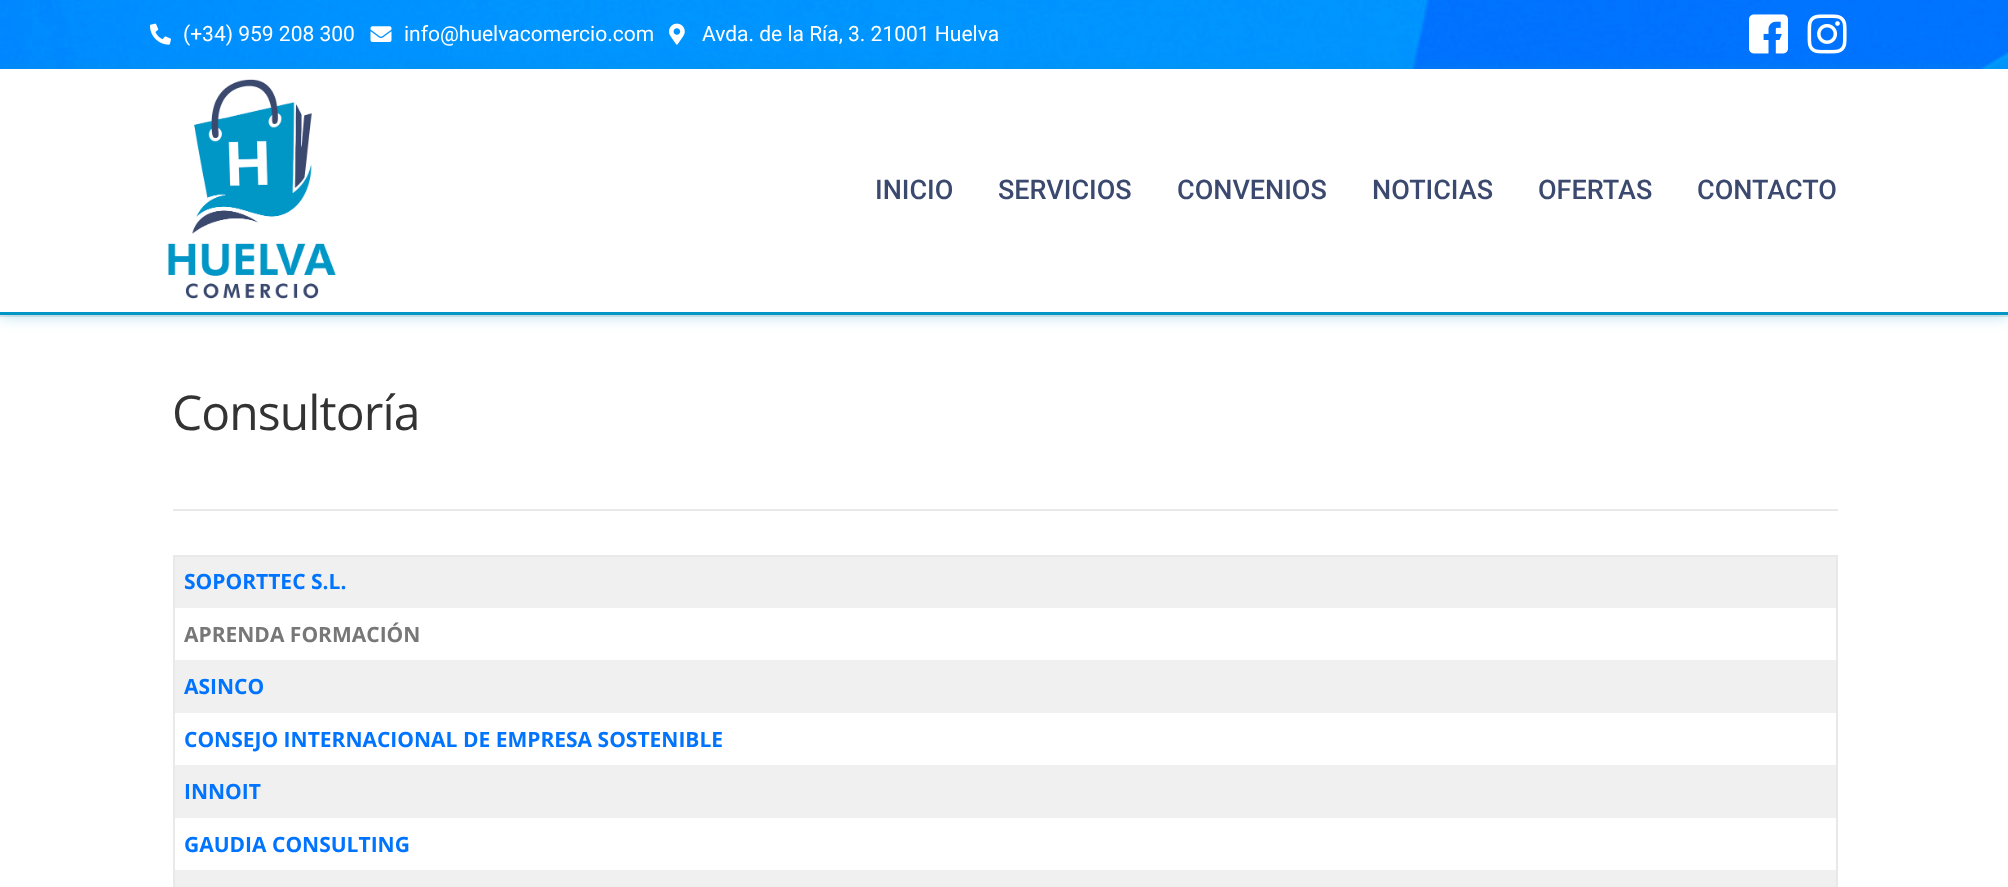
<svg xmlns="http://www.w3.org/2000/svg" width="2008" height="887">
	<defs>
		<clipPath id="clip1"><path d="M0 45H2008V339H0ZM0 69H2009V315H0Z" clip-rule="evenodd" /></clipPath>
	</defs>
	<rect width="100%" height="100%" fill="#FFFFFF" />
	<image x="0" y="0" width="2008" height="69" href="assets/img1.png" />
	<image x="150" y="23" width="21" height="22" href="assets/img2.png" />
	<text x="183" y="41" font-family="Roboto" font-size="21" fill="#FFFFFF">(+34) 959 208 300</text>
	<image x="370" y="26" width="22" height="16" href="assets/img3.png" />
	<text x="404" y="41" font-family="Roboto" font-size="21" fill="#FFFFFF">info@huelvacomercio.com</text>
	<image x="669" y="23" width="16" height="22" href="assets/img4.png" />
	<text x="702" y="41" font-family="Roboto" font-size="21" fill="#FFFFFF">Avda. de la Ría, 3. 21001 Huelva</text>
	<image x="1749" y="14" width="39" height="40" href="assets/img5.png" />
	<image x="1807" y="14" width="40" height="40" href="assets/img6.png" />
	<rect x="0" y="315" width="2008" height="2" fill="#E9E9E9" />
	<g clip-path="url(#clip1)">
		<rect x="0" y="69" width="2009" height="246" fill="#0097C7" fill-opacity="0.36" filter="blur(7.5px)" />
	</g>
	<rect x="0" y="312" width="2008" height="3" fill="#0097C7" />
	<image x="168" y="79" width="168" height="220" href="assets/img7.png" />
	<g font-family="Roboto" font-size="27" font-weight="500" fill="#3B496F">
		<text x="875" y="199">INICIO</text>
		<text x="998" y="199">SERVICIOS</text>
		<text x="1177" y="199">CONVENIOS</text>
		<text x="1372" y="199">NOTICIAS</text>
		<text x="1538" y="199">OFERTAS</text>
		<text x="1697" y="199">CONTACTO</text>
	</g>
	<text x="172" y="430" font-family="Open Sans" font-size="48" letter-spacing="-0.9" fill="#333333">Consultoría</text>
	<rect x="173" y="509" width="1665" height="2" fill="#E9E9E9" />
	<rect x="173" y="555" width="1665" height="2" fill="#E9E9E9" />
	<rect x="1836" y="555" width="2" height="332" fill="#E9E9E9" />
	<rect x="173" y="555" width="2" height="332" fill="#E9E9E9" />
	<rect x="175" y="557" width="1661" height="51" fill="#F0F0F0" />
	<text x="184" y="589" font-family="Open Sans" font-size="21" font-weight="700" fill="#0074FF">SOPORTTEC S.L.</text>
	<text x="184" y="642" font-family="Open Sans" font-size="21" font-weight="700" fill="#777777">APRENDA FORMACIÓN</text>
	<rect x="175" y="660" width="1661" height="53" fill="#F0F0F0" />
	<g font-family="Open Sans" font-size="21" font-weight="700" fill="#0074FF">
		<text x="184" y="694">ASINCO</text>
		<text x="184" y="747">CONSEJO INTERNACIONAL DE EMPRESA SOSTENIBLE</text>
	</g>
	<rect x="175" y="765" width="1661" height="53" fill="#F0F0F0" />
	<g font-family="Open Sans" font-size="21" font-weight="700" fill="#0074FF">
		<text x="184" y="799">INNOIT</text>
		<text x="184" y="852">GAUDIA CONSULTING</text>
	</g>
	<rect x="175" y="870" width="1661" height="17" fill="#F0F0F0" />
</svg>
